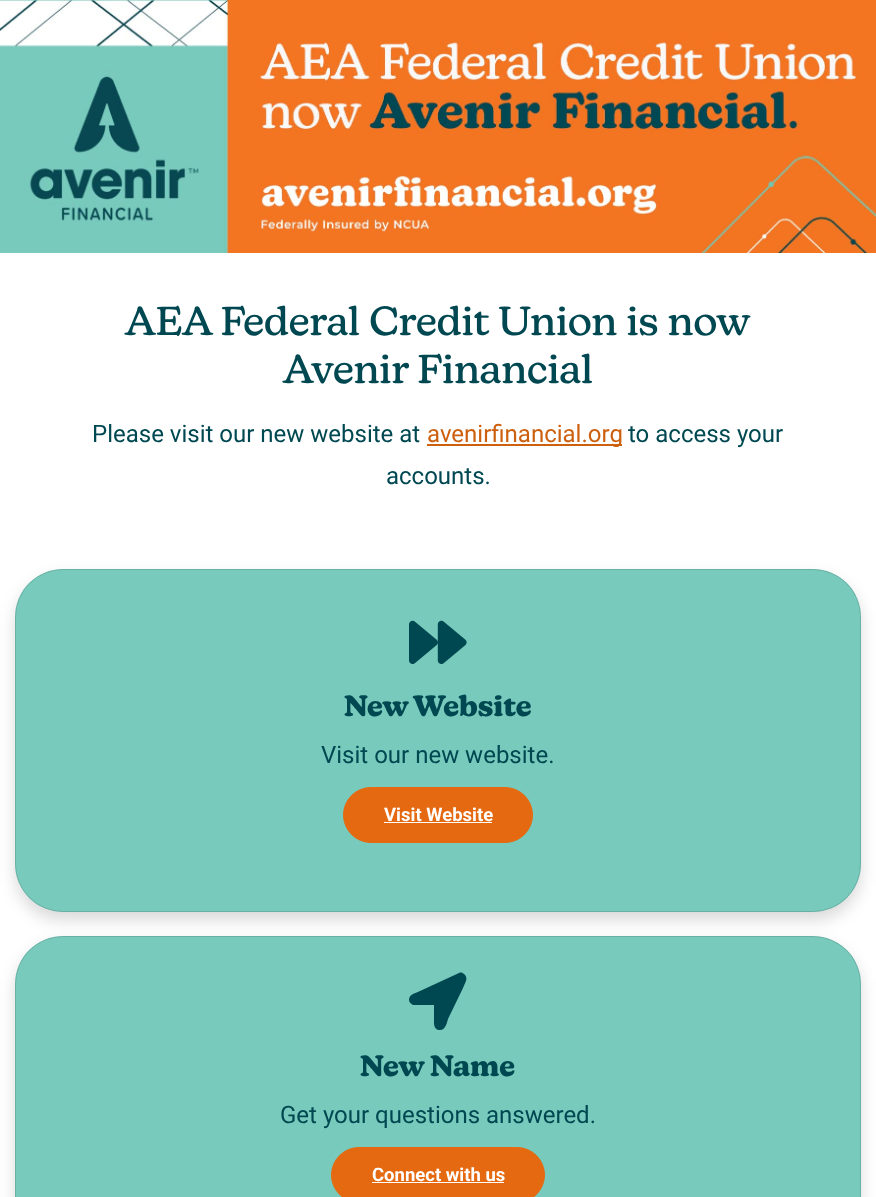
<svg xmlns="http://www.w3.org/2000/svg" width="876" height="1197">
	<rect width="100%" height="100%" fill="#FFFFFF" />
	<image x="0" y="0" width="876" height="253" href="assets/img1.png" />
	<g font-family="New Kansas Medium" font-size="40" font-weight="500" fill="#004851">
		<text x="125" y="335">AEA Federal Credit Union is now</text>
		<text x="283" y="383">Avenir Financial</text>
	</g>
	<text x="92" y="442" font-family="Roboto" font-size="24" fill="#004851">Please visit our new website at</text>
	<rect x="427" y="444" width="195" height="2" fill="#CD600E" />
	<text x="427" y="442" font-family="Roboto" font-size="24" fill="#CD600E">avenirfinancial.org</text>
	<g font-family="Roboto" font-size="24" fill="#004851">
		<text x="628" y="442">to access your</text>
		<text x="386" y="484">accounts.</text>
	</g>
	<rect x="15" y="577" width="846" height="343" rx="48" fill="#000000" fill-opacity="0.15" filter="blur(8px)" />
	<rect x="15" y="569" width="846" height="343" rx="48" fill="#78CABC" />
	<rect x="15.5" y="569.5" width="845" height="342" rx="47.5" fill="none" stroke="#000000" stroke-opacity="0.12" />
	<image x="409" y="620" width="58" height="45" href="assets/img2.png" />
	<text x="344" y="716" font-family="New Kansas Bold" font-size="28.75" font-weight="700" fill="#004851">New Website</text>
	<text x="321" y="763" font-family="Roboto" font-size="24" fill="#004851">Visit our new website.</text>
	<rect x="343.5" y="787.5" width="189" height="55" rx="27.5" fill="#E56910" stroke="#E56910" />
	<text x="384" y="821" font-family="Roboto" font-size="18.5" font-weight="700" fill="#FFFFFF">Visit Website</text>
	<rect x="384" y="822" width="108" height="1" fill="#FFFFFF" />
	<rect x="15" y="944" width="846" height="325" rx="48" fill="#000000" fill-opacity="0.15" filter="blur(8px)" />
	<rect x="15" y="936" width="846" height="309" rx="48" fill="#78CABC" />
	<rect x="15.5" y="936.5" width="845" height="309" rx="47.5" fill="none" stroke="#000000" stroke-opacity="0.12" />
	<path d="M459 973C461 972 463 973 464 974C469 978 465 983 463 988L448 1019C447 1023 445 1031 439 1030C433 1029 434 1022 434 1018V1005H413C411 1004 409 1002 409 1000C409 994 416 993 420 991Z" fill="#004851" />
	<text x="360" y="1076" font-family="New Kansas Bold" font-size="28.75" font-weight="700" fill="#004851">New Name</text>
	<text x="280" y="1123" font-family="Roboto" font-size="24" fill="#004851">Get your questions answered.</text>
	<rect x="331.5" y="1147.5" width="213" height="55" rx="27.5" fill="#E56910" stroke="#E56910" />
	<text x="372" y="1181" font-family="Roboto" font-size="18.5" font-weight="700" fill="#FFFFFF">Connect with us</text>
	<rect x="372" y="1182" width="132" height="1" fill="#FFFFFF" />
</svg>
